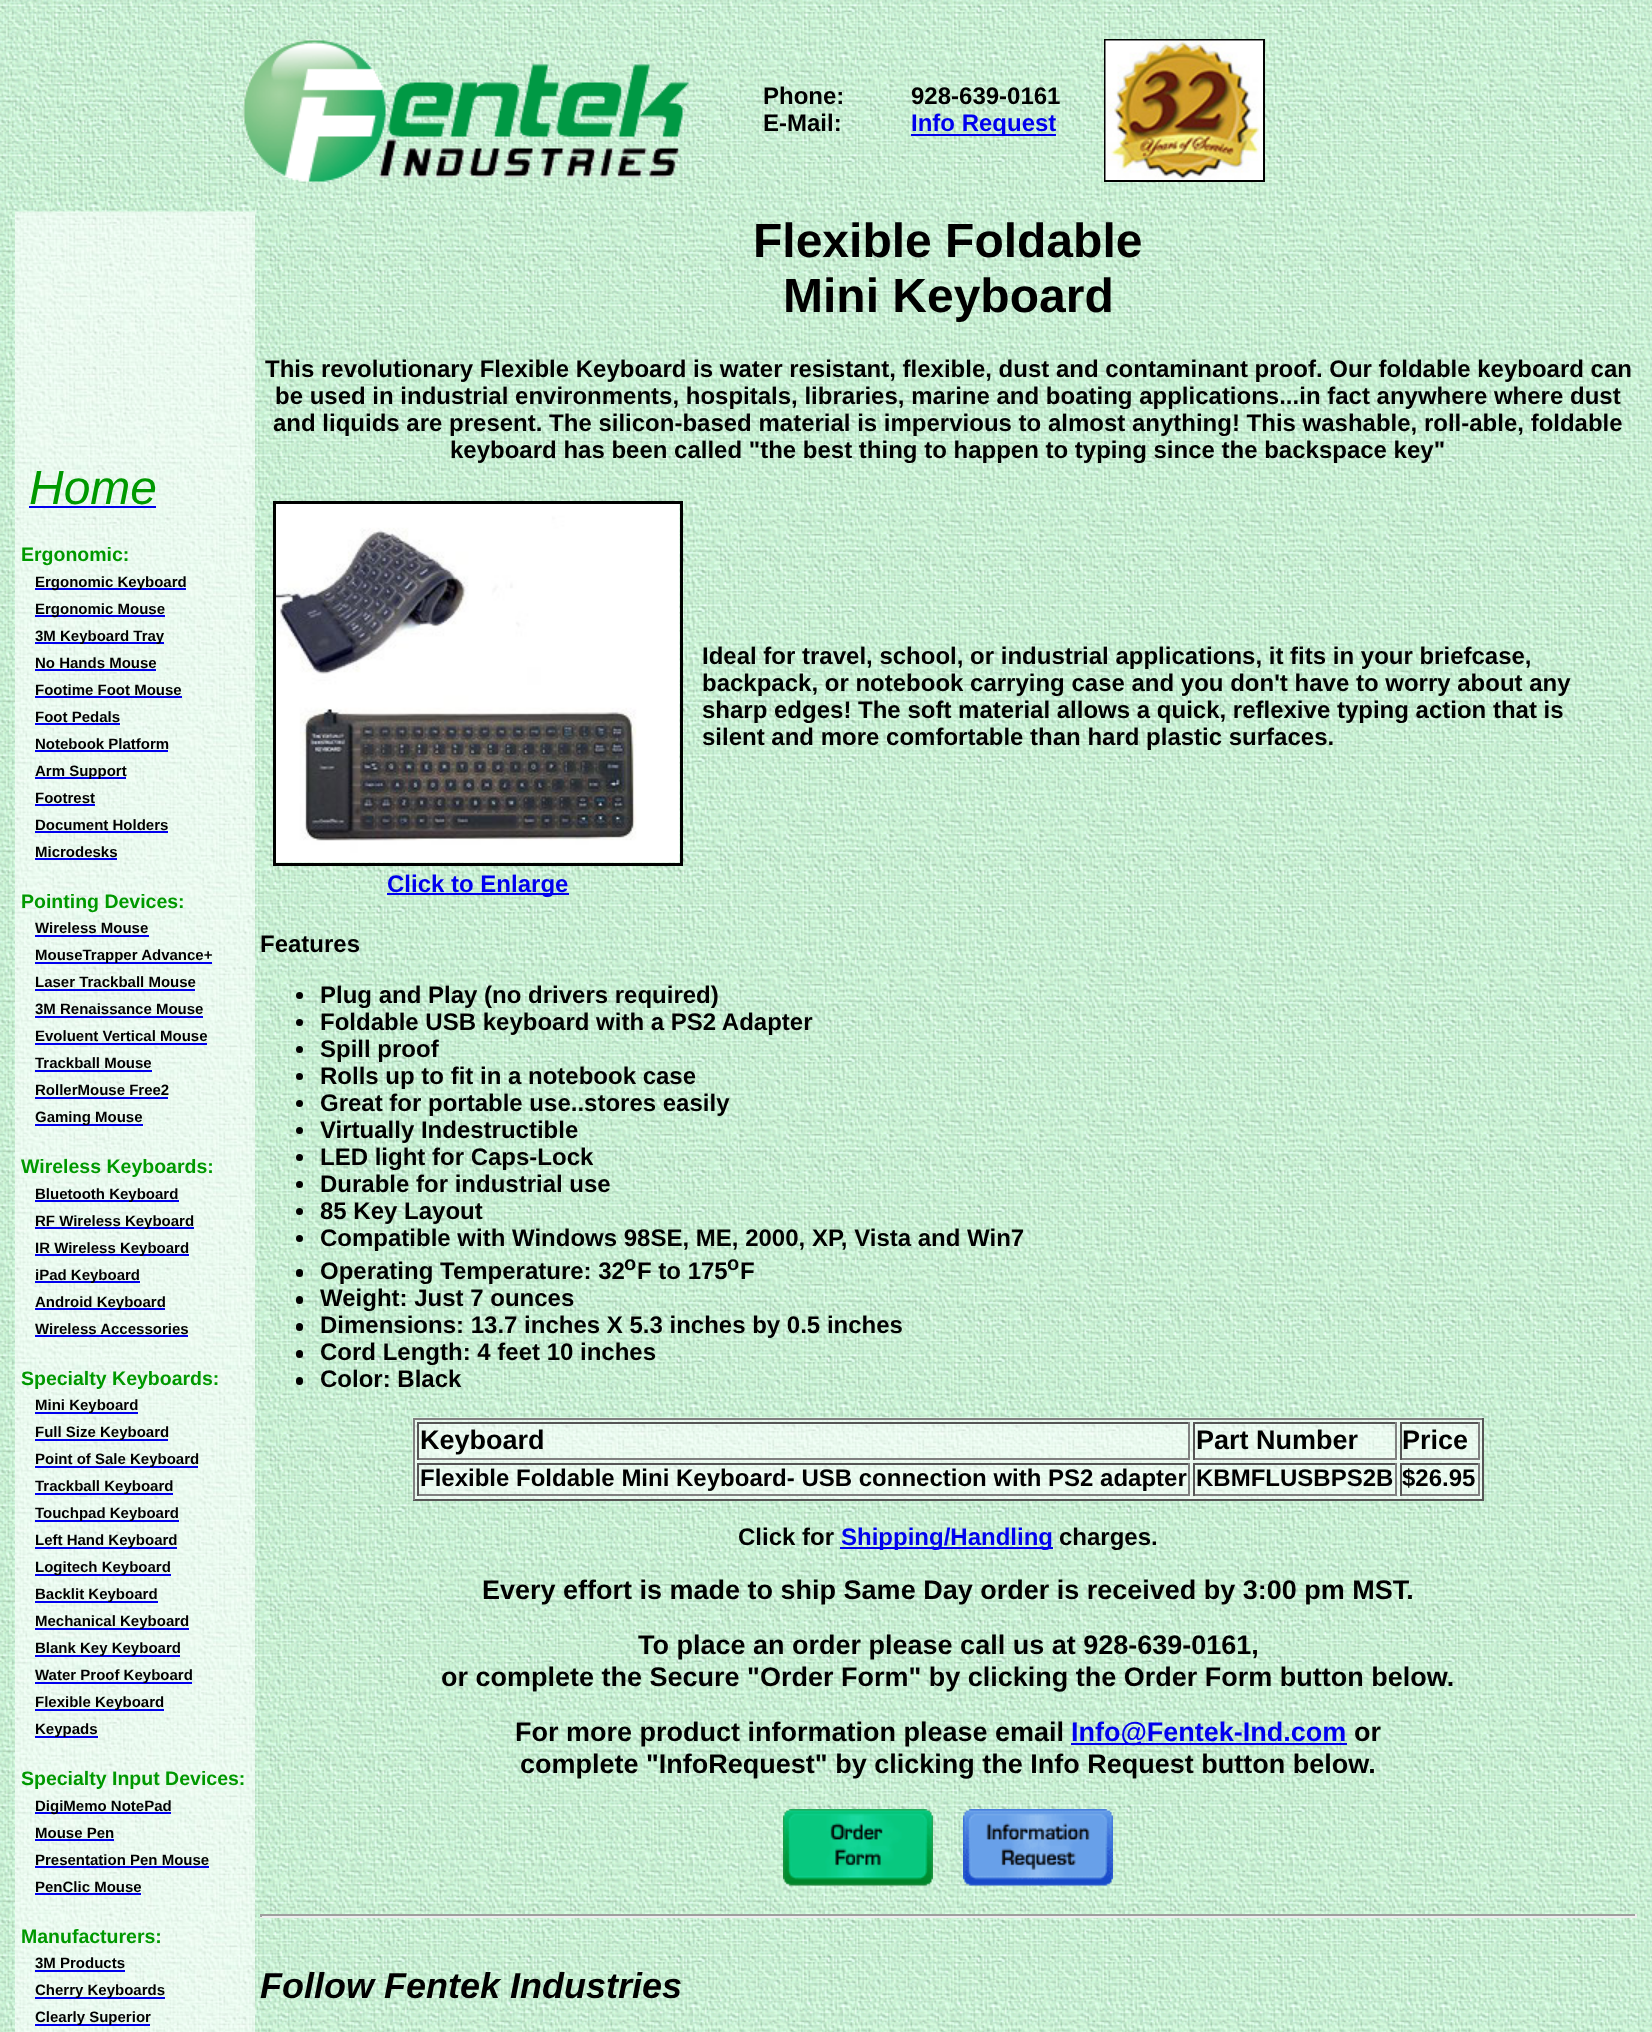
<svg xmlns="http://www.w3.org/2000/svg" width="1652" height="2032">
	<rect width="100%" height="100%" fill="#FFFFFF" />
	<image x="0" y="0" width="1652" height="2032" href="assets/img1.png" />
	<image x="242" y="39" width="448" height="143" href="assets/img2.png" />
	<g font-family="Liberation Sans" font-size="24" font-weight="700" fill="#000000">
		<text x="763" y="104">Phone:</text>
		<text x="763" y="131">E-Mail:</text>
		<text x="911" y="104">928-639-0161</text>
	</g>
	<rect x="911" y="134" width="145" height="2" fill="#0000EE" />
	<text x="911" y="131" font-family="Liberation Sans" font-size="24" font-weight="700" fill="#0000EE">Info Request</text>
	<rect x="1105" y="40" width="159" height="141" fill="none" stroke="#000000" stroke-width="2" />
	<image x="1105" y="40" width="158" height="140" href="assets/img3.png" />
	<image x="15" y="211" width="240" height="1821" href="assets/img4.png" />
	<text x="29" y="504" font-family="Liberation Sans" font-size="48" font-style="italic" fill="#009900">Home</text>
	<rect x="29" y="506" width="127" height="2" fill="#0000EE" />
	<text x="21" y="561" font-family="Liberation Sans" font-size="19.5" font-weight="700" fill="#009900">Ergonomic:</text>
	<rect x="35" y="588" width="151" height="2" fill="#0000EE" />
	<text x="35" y="587" font-family="Liberation Sans" font-size="15" font-weight="700" fill="#000000">Ergonomic Keyboard</text>
	<rect x="35" y="615" width="130" height="2" fill="#0000EE" />
	<text x="35" y="614" font-family="Liberation Sans" font-size="15" font-weight="700" fill="#000000">Ergonomic Mouse</text>
	<rect x="35" y="642" width="129" height="2" fill="#0000EE" />
	<g font-family="Liberation Sans" font-size="15" font-weight="700" fill="#000000">
		<text x="35" y="641">3M Keyboard Tray</text>
		<text x="35" y="668">No Hands Mouse</text>
	</g>
	<rect x="35" y="669" width="121" height="2" fill="#0000EE" />
	<text x="35" y="695" font-family="Liberation Sans" font-size="15" font-weight="700" fill="#000000">Footime Foot Mouse</text>
	<rect x="35" y="696" width="147" height="2" fill="#0000EE" />
	<text x="35" y="722" font-family="Liberation Sans" font-size="15" font-weight="700" fill="#000000">Foot Pedals</text>
	<rect x="35" y="723" width="85" height="2" fill="#0000EE" />
	<text x="35" y="749" font-family="Liberation Sans" font-size="15" font-weight="700" fill="#000000">Notebook Platform</text>
	<rect x="35" y="750" width="133" height="2" fill="#0000EE" />
	<rect x="35" y="777" width="91" height="2" fill="#0000EE" />
	<g font-family="Liberation Sans" font-size="15" font-weight="700" fill="#000000">
		<text x="35" y="776">Arm Support</text>
		<text x="35" y="803">Footrest</text>
	</g>
	<rect x="35" y="804" width="60" height="2" fill="#0000EE" />
	<text x="35" y="830" font-family="Liberation Sans" font-size="15" font-weight="700" fill="#000000">Document Holders</text>
	<rect x="35" y="831" width="133" height="2" fill="#0000EE" />
	<text x="35" y="857" font-family="Liberation Sans" font-size="15" font-weight="700" fill="#000000">Microdesks</text>
	<rect x="35" y="858" width="82" height="2" fill="#0000EE" />
	<text x="21" y="908" font-family="Liberation Sans" font-size="19.5" font-weight="700" fill="#009900">Pointing Devices:</text>
	<text x="35" y="933" font-family="Liberation Sans" font-size="15" font-weight="700" fill="#000000">Wireless Mouse</text>
	<rect x="35" y="935" width="114" height="2" fill="#0000EE" />
	<rect x="35" y="962" width="177" height="2" fill="#0000EE" />
	<g font-family="Liberation Sans" font-size="15" font-weight="700" fill="#000000">
		<text x="35" y="960">MouseTrapper Advance+</text>
		<text x="35" y="987">Laser Trackball Mouse</text>
	</g>
	<rect x="35" y="989" width="160" height="2" fill="#0000EE" />
	<text x="35" y="1014" font-family="Liberation Sans" font-size="15" font-weight="700" fill="#000000">3M Renaissance Mouse</text>
	<rect x="35" y="1016" width="168" height="2" fill="#0000EE" />
	<text x="35" y="1041" font-family="Liberation Sans" font-size="15" font-weight="700" fill="#000000">Evoluent Vertical Mouse</text>
	<rect x="35" y="1043" width="172" height="2" fill="#0000EE" />
	<text x="35" y="1068" font-family="Liberation Sans" font-size="15" font-weight="700" fill="#000000">Trackball Mouse</text>
	<rect x="35" y="1070" width="117" height="2" fill="#0000EE" />
	<text x="35" y="1095" font-family="Liberation Sans" font-size="15" font-weight="700" fill="#000000">RollerMouse Free2</text>
	<rect x="35" y="1097" width="133" height="2" fill="#0000EE" />
	<rect x="35" y="1124" width="108" height="2" fill="#0000EE" />
	<text x="35" y="1122" font-family="Liberation Sans" font-size="15" font-weight="700" fill="#000000">Gaming Mouse</text>
	<text x="21" y="1173" font-family="Liberation Sans" font-size="19.5" font-weight="700" fill="#009900">Wireless Keyboards:</text>
	<rect x="35" y="1200" width="144" height="2" fill="#0000EE" />
	<text x="35" y="1199" font-family="Liberation Sans" font-size="15" font-weight="700" fill="#000000">Bluetooth Keyboard</text>
	<rect x="35" y="1227" width="159" height="2" fill="#0000EE" />
	<text x="35" y="1226" font-family="Liberation Sans" font-size="15" font-weight="700" fill="#000000">RF Wireless Keyboard</text>
	<rect x="35" y="1254" width="154" height="2" fill="#0000EE" />
	<text x="35" y="1253" font-family="Liberation Sans" font-size="15" font-weight="700" fill="#000000">IR Wireless Keyboard</text>
	<rect x="35" y="1281" width="105" height="2" fill="#0000EE" />
	<text x="35" y="1280" font-family="Liberation Sans" font-size="15" font-weight="700" fill="#000000">iPad Keyboard</text>
	<rect x="35" y="1308" width="130" height="2" fill="#0000EE" />
	<g font-family="Liberation Sans" font-size="15" font-weight="700" fill="#000000">
		<text x="35" y="1307">Android Keyboard</text>
		<text x="35" y="1334">Wireless Accessories</text>
	</g>
	<rect x="35" y="1335" width="153" height="2" fill="#0000EE" />
	<text x="21" y="1385" font-family="Liberation Sans" font-size="19.5" font-weight="700" fill="#009900">Specialty Keyboards:</text>
	<rect x="35" y="1412" width="103" height="2" fill="#0000EE" />
	<text x="35" y="1410" font-family="Liberation Sans" font-size="15" font-weight="700" fill="#000000">Mini Keyboard</text>
	<rect x="35" y="1439" width="133" height="2" fill="#0000EE" />
	<text x="35" y="1437" font-family="Liberation Sans" font-size="15" font-weight="700" fill="#000000">Full Size Keyboard</text>
	<rect x="35" y="1466" width="163" height="2" fill="#0000EE" />
	<text x="35" y="1464" font-family="Liberation Sans" font-size="15" font-weight="700" fill="#000000">Point of Sale Keyboard</text>
	<rect x="35" y="1493" width="138" height="2" fill="#0000EE" />
	<text x="35" y="1491" font-family="Liberation Sans" font-size="15" font-weight="700" fill="#000000">Trackball Keyboard</text>
	<rect x="35" y="1520" width="144" height="2" fill="#0000EE" />
	<text x="35" y="1518" font-family="Liberation Sans" font-size="15" font-weight="700" fill="#000000">Touchpad Keyboard</text>
	<rect x="35" y="1547" width="142" height="2" fill="#0000EE" />
	<text x="35" y="1545" font-family="Liberation Sans" font-size="15" font-weight="700" fill="#000000">Left Hand Keyboard</text>
	<rect x="35" y="1574" width="136" height="2" fill="#0000EE" />
	<text x="35" y="1572" font-family="Liberation Sans" font-size="15" font-weight="700" fill="#000000">Logitech Keyboard</text>
	<rect x="35" y="1601" width="123" height="2" fill="#0000EE" />
	<text x="35" y="1599" font-family="Liberation Sans" font-size="15" font-weight="700" fill="#000000">Backlit Keyboard</text>
	<rect x="35" y="1628" width="154" height="2" fill="#0000EE" />
	<text x="35" y="1626" font-family="Liberation Sans" font-size="15" font-weight="700" fill="#000000">Mechanical Keyboard</text>
	<rect x="35" y="1655" width="145" height="2" fill="#0000EE" />
	<text x="35" y="1653" font-family="Liberation Sans" font-size="15" font-weight="700" fill="#000000">Blank Key Keyboard</text>
	<rect x="35" y="1682" width="157" height="2" fill="#0000EE" />
	<text x="35" y="1680" font-family="Liberation Sans" font-size="15" font-weight="700" fill="#000000">Water Proof Keyboard</text>
	<rect x="35" y="1709" width="129" height="2" fill="#0000EE" />
	<text x="35" y="1707" font-family="Liberation Sans" font-size="15" font-weight="700" fill="#000000">Flexible Keyboard</text>
	<rect x="35" y="1736" width="63" height="2" fill="#0000EE" />
	<text x="35" y="1734" font-family="Liberation Sans" font-size="15" font-weight="700" fill="#000000">Keypads</text>
	<text x="21" y="1785" font-family="Liberation Sans" font-size="19.5" font-weight="700" fill="#009900">Specialty Input Devices:</text>
	<rect x="35" y="1812" width="136" height="2" fill="#0000EE" />
	<g font-family="Liberation Sans" font-size="15" font-weight="700" fill="#000000">
		<text x="35" y="1811">DigiMemo NotePad</text>
		<text x="35" y="1838">Mouse Pen</text>
	</g>
	<rect x="35" y="1839" width="79" height="2" fill="#0000EE" />
	<text x="35" y="1865" font-family="Liberation Sans" font-size="15" font-weight="700" fill="#000000">Presentation Pen Mouse</text>
	<rect x="35" y="1866" width="174" height="2" fill="#0000EE" />
	<text x="35" y="1892" font-family="Liberation Sans" font-size="15" font-weight="700" fill="#000000">PenClic Mouse</text>
	<rect x="35" y="1893" width="106" height="2" fill="#0000EE" />
	<text x="21" y="1943" font-family="Liberation Sans" font-size="19.5" font-weight="700" fill="#009900">Manufacturers:</text>
	<text x="35" y="1968" font-family="Liberation Sans" font-size="15" font-weight="700" fill="#000000">3M Products</text>
	<rect x="35" y="1970" width="90" height="2" fill="#0000EE" />
	<rect x="35" y="1997" width="130" height="2" fill="#0000EE" />
	<text x="35" y="1995" font-family="Liberation Sans" font-size="15" font-weight="700" fill="#000000">Cherry Keyboards</text>
	<rect x="35" y="2024" width="115" height="2" fill="#0000EE" />
	<text x="35" y="2022" font-family="Liberation Sans" font-size="15" font-weight="700" fill="#000000">Clearly Superior</text>
	<g font-family="Liberation Sans" font-size="48" font-weight="700" fill="#000000">
		<text x="753" y="257">Flexible Foldable</text>
		<text x="783" y="312">Mini Keyboard</text>
	</g>
	<g font-family="Liberation Sans" font-size="24" font-weight="700" fill="#000000">
		<text x="265" y="377">This revolutionary Flexible Keyboard is water resistant, flexible, dust and contaminant proof. Our foldable keyboard can</text>
		<text x="275" y="404">be used in industrial environments, hospitals, libraries, marine and boating applications...in fact anywhere where dust</text>
		<text x="273" y="431">and liquids are present. The silicon-based material is impervious to almost anything! This washable, roll-able, foldable</text>
		<text x="450" y="458">keyboard has been called "the best thing to happen to typing since the backspace key"</text>
		<text x="702" y="664">Ideal for travel, school, or industrial applications, it fits in your briefcase,</text>
		<text x="702" y="691">backpack, or notebook carrying case and you don't have to worry about any</text>
		<text x="702" y="718">sharp edges! The soft material allows a quick, reflexive typing action that is</text>
		<text x="702" y="745">silent and more comfortable than hard plastic surfaces.</text>
	</g>
	<rect x="274.5" y="502.5" width="407" height="362" fill="none" stroke="#000000" stroke-width="3" />
	<image x="276" y="504" width="404" height="359" href="assets/img5.png" />
	<rect x="387" y="893" width="182" height="2" fill="#0000EE" />
	<text x="387" y="892" font-family="Liberation Sans" font-size="24" font-weight="700" fill="#0000EE">Click to Enlarge</text>
	<text x="260" y="952" font-family="Liberation Sans" font-size="24" font-weight="700" fill="#000000">Features</text>
	<circle cx="299.5" cy="995.5" r="3.5" fill="#000000" />
	<text x="320" y="1003" font-family="Liberation Sans" font-size="24" font-weight="700" fill="#000000">Plug and Play (no drivers required)</text>
	<circle cx="299.5" cy="1022.5" r="3.5" fill="#000000" />
	<text x="320" y="1030" font-family="Liberation Sans" font-size="24" font-weight="700" fill="#000000">Foldable USB keyboard with a PS2 Adapter</text>
	<circle cx="299.5" cy="1049.5" r="3.5" fill="#000000" />
	<text x="320" y="1057" font-family="Liberation Sans" font-size="24" font-weight="700" fill="#000000">Spill proof</text>
	<circle cx="299.5" cy="1076.5" r="3.5" fill="#000000" />
	<text x="320" y="1084" font-family="Liberation Sans" font-size="24" font-weight="700" fill="#000000">Rolls up to fit in a notebook case</text>
	<circle cx="299.5" cy="1103.5" r="3.5" fill="#000000" />
	<text x="320" y="1111" font-family="Liberation Sans" font-size="24" font-weight="700" fill="#000000">Great for portable use..stores easily</text>
	<circle cx="299.5" cy="1130.5" r="3.5" fill="#000000" />
	<text x="320" y="1138" font-family="Liberation Sans" font-size="24" font-weight="700" fill="#000000">Virtually Indestructible</text>
	<circle cx="299.5" cy="1157.5" r="3.5" fill="#000000" />
	<text x="320" y="1165" font-family="Liberation Sans" font-size="24" font-weight="700" fill="#000000">LED light for Caps-Lock</text>
	<circle cx="299.5" cy="1184.5" r="3.5" fill="#000000" />
	<text x="320" y="1192" font-family="Liberation Sans" font-size="24" font-weight="700" fill="#000000">Durable for industrial use</text>
	<circle cx="299.5" cy="1211.5" r="3.5" fill="#000000" />
	<text x="320" y="1219" font-family="Liberation Sans" font-size="24" font-weight="700" fill="#000000">85 Key Layout</text>
	<circle cx="299.5" cy="1238.5" r="3.5" fill="#000000" />
	<text x="320" y="1246" font-family="Liberation Sans" font-size="24" font-weight="700" fill="#000000">Compatible with Windows 98SE, ME, 2000, XP, Vista and Win7</text>
	<rect x="296" y="1269" width="7" height="8" rx="3.5" fill="#000000" />
	<text x="320" y="1279" font-family="Liberation Sans" font-size="24" font-weight="700" fill="#000000">Operating Temperature: 32</text>
	<text x="624" y="1270" font-family="Liberation Sans" font-size="20" font-weight="700" fill="#000000">o</text>
	<text x="637" y="1279" font-family="Liberation Sans" font-size="24" font-weight="700" fill="#000000">F to 175</text>
	<text x="727" y="1270" font-family="Liberation Sans" font-size="20" font-weight="700" fill="#000000">o</text>
	<text x="740" y="1279" font-family="Liberation Sans" font-size="24" font-weight="700" fill="#000000">F</text>
	<rect x="296" y="1296" width="7" height="8" rx="3.5" fill="#000000" />
	<text x="320" y="1306" font-family="Liberation Sans" font-size="24" font-weight="700" fill="#000000">Weight: Just 7 ounces</text>
	<rect x="296" y="1323" width="7" height="8" rx="3.5" fill="#000000" />
	<text x="320" y="1333" font-family="Liberation Sans" font-size="24" font-weight="700" fill="#000000">Dimensions: 13.7 inches X 5.3 inches by 0.5 inches</text>
	<rect x="296" y="1350" width="7" height="8" rx="3.5" fill="#000000" />
	<text x="320" y="1360" font-family="Liberation Sans" font-size="24" font-weight="700" fill="#000000">Cord Length: 4 feet 10 inches</text>
	<rect x="296" y="1377" width="7" height="8" rx="3.5" fill="#000000" />
	<text x="320" y="1387" font-family="Liberation Sans" font-size="24" font-weight="700" fill="#000000">Color: Black</text>
	<image x="412" y="1417" width="1072" height="83" href="assets/img6.png" />
	<rect x="413" y="1418" width="1071" height="2" fill="#808080" />
	<rect x="1482" y="1418" width="2" height="82" fill="#555555" />
	<rect x="413" y="1499" width="1071" height="2" fill="#555555" />
	<rect x="413" y="1418" width="2" height="82" fill="#808080" />
	<rect x="417" y="1422" width="773" height="2" fill="#555555" />
	<rect x="1188" y="1422" width="2" height="38" fill="#808080" />
	<rect x="417" y="1458" width="773" height="2" fill="#808080" />
	<rect x="417" y="1422" width="2" height="38" fill="#555555" />
	<text x="420" y="1449" font-family="Liberation Sans" font-size="27" font-weight="700" fill="#000000">Keyboard</text>
	<rect x="1193" y="1422" width="204" height="2" fill="#555555" />
	<rect x="1395" y="1422" width="2" height="38" fill="#808080" />
	<rect x="1193" y="1458" width="204" height="2" fill="#808080" />
	<rect x="1193" y="1422" width="2" height="38" fill="#555555" />
	<text x="1196" y="1449" font-family="Liberation Sans" font-size="27" font-weight="700" fill="#000000">Part Number</text>
	<rect x="1400" y="1422" width="79" height="2" fill="#555555" />
	<rect x="1478" y="1422" width="2" height="38" fill="#808080" />
	<rect x="1400" y="1458" width="79" height="2" fill="#808080" />
	<rect x="1400" y="1422" width="2" height="38" fill="#555555" />
	<text x="1402" y="1449" font-family="Liberation Sans" font-size="27" font-weight="700" fill="#000000">Price</text>
	<rect x="417" y="1463" width="773" height="2" fill="#555555" />
	<rect x="1188" y="1463" width="2" height="33" fill="#808080" />
	<rect x="417" y="1494" width="773" height="2" fill="#808080" />
	<rect x="417" y="1463" width="2" height="33" fill="#555555" />
	<text x="420" y="1486" font-family="Liberation Sans" font-size="24" font-weight="700" fill="#000000">Flexible Foldable Mini Keyboard- USB connection with PS2 adapter</text>
	<rect x="1193" y="1463" width="204" height="2" fill="#555555" />
	<rect x="1395" y="1463" width="2" height="33" fill="#808080" />
	<rect x="1193" y="1494" width="204" height="2" fill="#808080" />
	<rect x="1193" y="1463" width="2" height="33" fill="#555555" />
	<text x="1196" y="1486" font-family="Liberation Sans" font-size="24" font-weight="700" fill="#000000">KBMFLUSBPS2B</text>
	<rect x="1400" y="1463" width="79" height="2" fill="#555555" />
	<rect x="1478" y="1463" width="2" height="33" fill="#808080" />
	<rect x="1400" y="1494" width="79" height="2" fill="#808080" />
	<rect x="1400" y="1463" width="2" height="33" fill="#555555" />
	<g font-family="Liberation Sans" font-size="24" font-weight="700" fill="#000000">
		<text x="1402" y="1486">$26.95</text>
		<text x="738" y="1545">Click for</text>
	</g>
	<rect x="840" y="1547" width="213" height="2" fill="#0000EE" />
	<text x="841" y="1545" font-family="Liberation Sans" font-size="24" font-weight="700" fill="#0000EE">Shipping/Handling</text>
	<text x="1059" y="1545" font-family="Liberation Sans" font-size="24" font-weight="700" fill="#000000">charges.</text>
	<g font-family="Liberation Sans" font-size="27" font-weight="700" fill="#000000">
		<text x="482" y="1599">Every effort is made to ship Same Day order is received by 3:00 pm MST.</text>
		<text x="638" y="1654">To place an order please call us at 928-639-0161,</text>
		<text x="441" y="1686">or complete the Secure "Order Form" by clicking the Order Form button below.</text>
		<text x="515" y="1741">For more product information please email</text>
	</g>
	<rect x="1071" y="1743" width="276" height="2" fill="#0000EE" />
	<text x="1071" y="1741" font-family="Liberation Sans" font-size="27" font-weight="700" fill="#0000EE">Info@Fentek-Ind.com</text>
	<g font-family="Liberation Sans" font-size="27" font-weight="700" fill="#000000">
		<text x="1354" y="1741">or</text>
		<text x="520" y="1773">complete "InfoRequest" by clicking the Info Request button below.</text>
	</g>
	<image x="783" y="1809" width="150" height="77" href="assets/img7.png" />
	<image x="963" y="1809" width="150" height="77" href="assets/img8.png" />
	<rect x="260" y="1914" width="1377" height="2" fill="#9F9F9F" />
	<rect x="1635" y="1914" width="2" height="3" fill="#EEEEEE" />
	<rect x="260" y="1916" width="1377" height="2" fill="#EEEEEE" />
	<rect x="260" y="1914" width="2" height="3" fill="#9F9F9F" />
	<text x="260" y="1998" font-family="Liberation Sans" font-size="36" font-weight="700" font-style="italic" fill="#000000">Follow Fentek Industries</text>
</svg>
